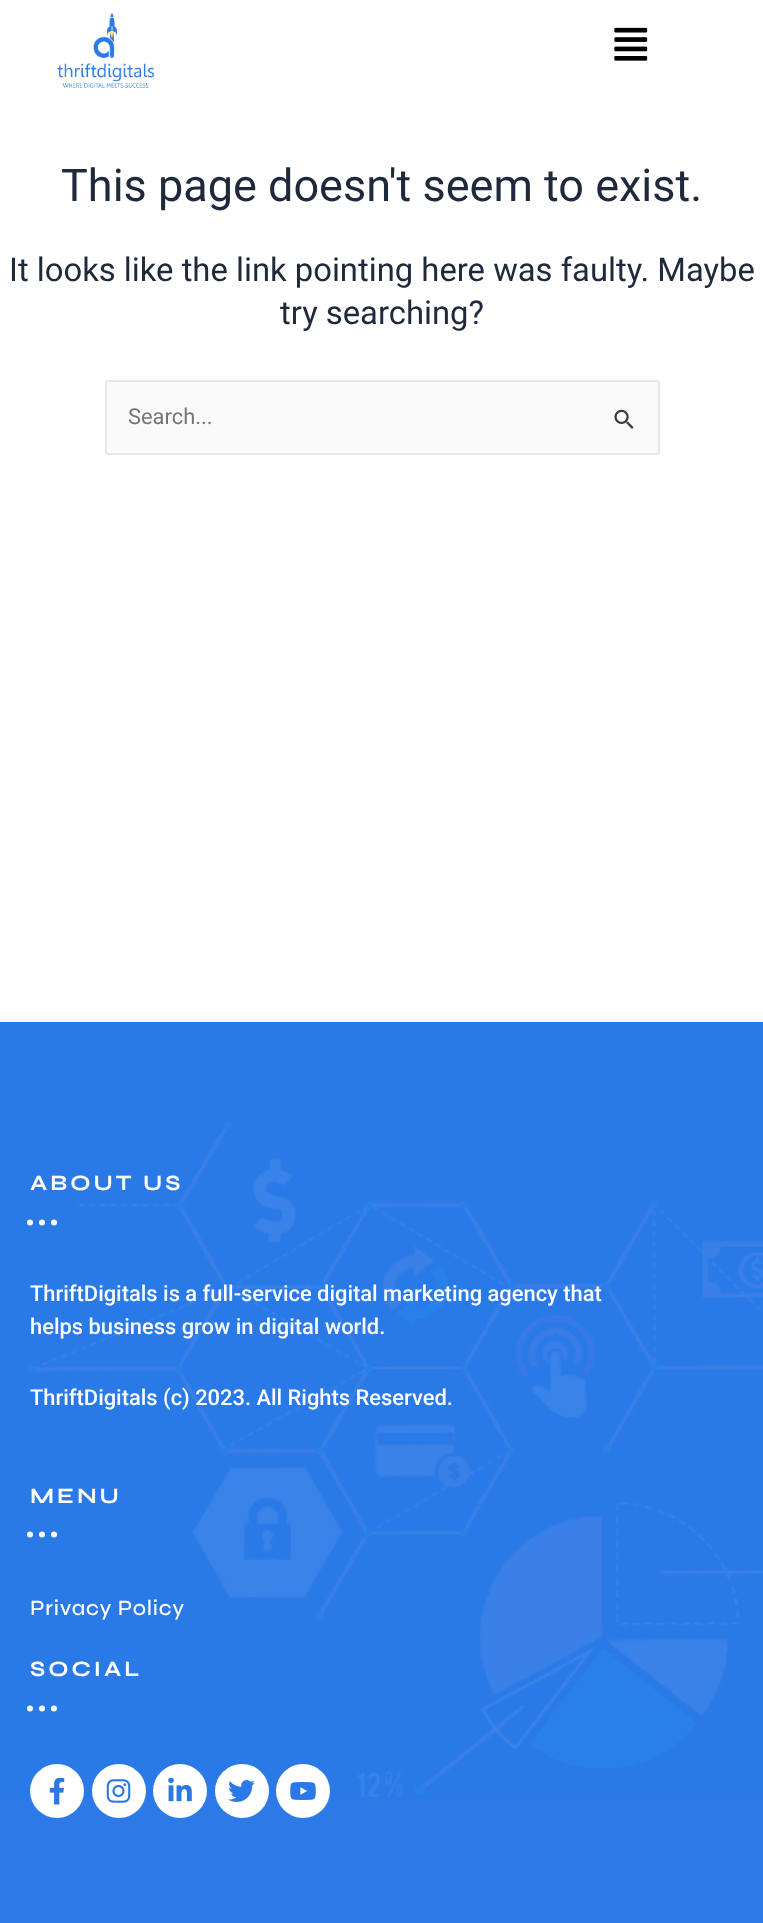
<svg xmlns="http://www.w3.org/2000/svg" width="763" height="1923">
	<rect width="100%" height="100%" fill="#FFFFFF" />
	<image x="57" y="13" width="97" height="75" href="assets/img1.png" />
	<image x="614" y="27" width="34" height="34" href="assets/img2.png" />
	<text x="61" y="201" font-family="Roboto" font-size="45" fill="#1E293B">This page doesn't seem to exist.</text>
	<g font-family="Roboto" font-size="32.8" fill="#1E293B">
		<text x="9" y="281">It looks like the link pointing here was faulty. Maybe</text>
		<text x="280" y="324">try searching?</text>
	</g>
	<rect x="106" y="381" width="553" height="73" rx="2" fill="#FAFAFA" stroke="#E2E8F0" stroke-width="2" />
	<text x="128" y="424" font-family="Roboto" font-size="21.9" fill="#757575">Search...</text>
	<image x="614" y="409" width="20" height="20" href="assets/img3.png" />
	<rect x="0" y="1022" width="763" height="901" fill="#2C7AE8" />
	<image x="0" y="1021" width="763" height="777" href="assets/img4.png" />
	<text x="30" y="1190" font-family="Syne" font-size="21.9" font-weight="700" letter-spacing="3" fill="#FFFFFF">ABOUT US</text>
	<path d="M30 1222.5H61.5" fill="none" stroke="#FFFFFF" stroke-width="6" stroke-linecap="round" stroke-dasharray="0 12" />
	<g font-family="Roboto" font-size="21.9" font-weight="500" fill="#FFFFFF">
		<text x="30" y="1301">ThriftDigitals is a full-service digital marketing agency that</text>
		<text x="30" y="1334">helps business grow in digital world.</text>
		<text x="30" y="1405">ThriftDigitals (c) 2023. All Rights Reserved.</text>
	</g>
	<text x="30" y="1503" font-family="Syne" font-size="21.9" font-weight="700" letter-spacing="3" fill="#FFFFFF">MENU</text>
	<path d="M30 1534.5H64.5" fill="none" stroke="#FFFFFF" stroke-width="6" stroke-linecap="round" stroke-dasharray="0 12" />
	<text x="30" y="1615" font-family="Syne" font-size="21.9" font-weight="500" letter-spacing="0.75" fill="#FFFFFF">Privacy Policy</text>
	<text x="30" y="1676" font-family="Syne" font-size="21.9" font-weight="700" letter-spacing="3" fill="#FFFFFF">SOCIAL</text>
	<path d="M30 1708.5H64.5" fill="none" stroke="#FFFFFF" stroke-width="6" stroke-linecap="round" stroke-dasharray="0 12" />
	<circle cx="57" cy="1791" r="27" fill="#FFFFFF" />
	<image x="49" y="1778" width="16" height="27" href="assets/img5.png" />
	<circle cx="119" cy="1791" r="27" fill="#FFFFFF" />
	<image x="106" y="1779" width="25" height="24" href="assets/img6.png" />
	<circle cx="180" cy="1791" r="27" fill="#FFFFFF" />
	<image x="168" y="1778" width="24" height="24" href="assets/img7.png" />
	<circle cx="242" cy="1791" r="27" fill="#FFFFFF" />
	<image x="228" y="1780" width="27" height="22" href="assets/img8.png" />
	<circle cx="303" cy="1791" r="27" fill="#FFFFFF" />
	<image x="290" y="1782" width="26" height="18" href="assets/img9.png" />
</svg>
